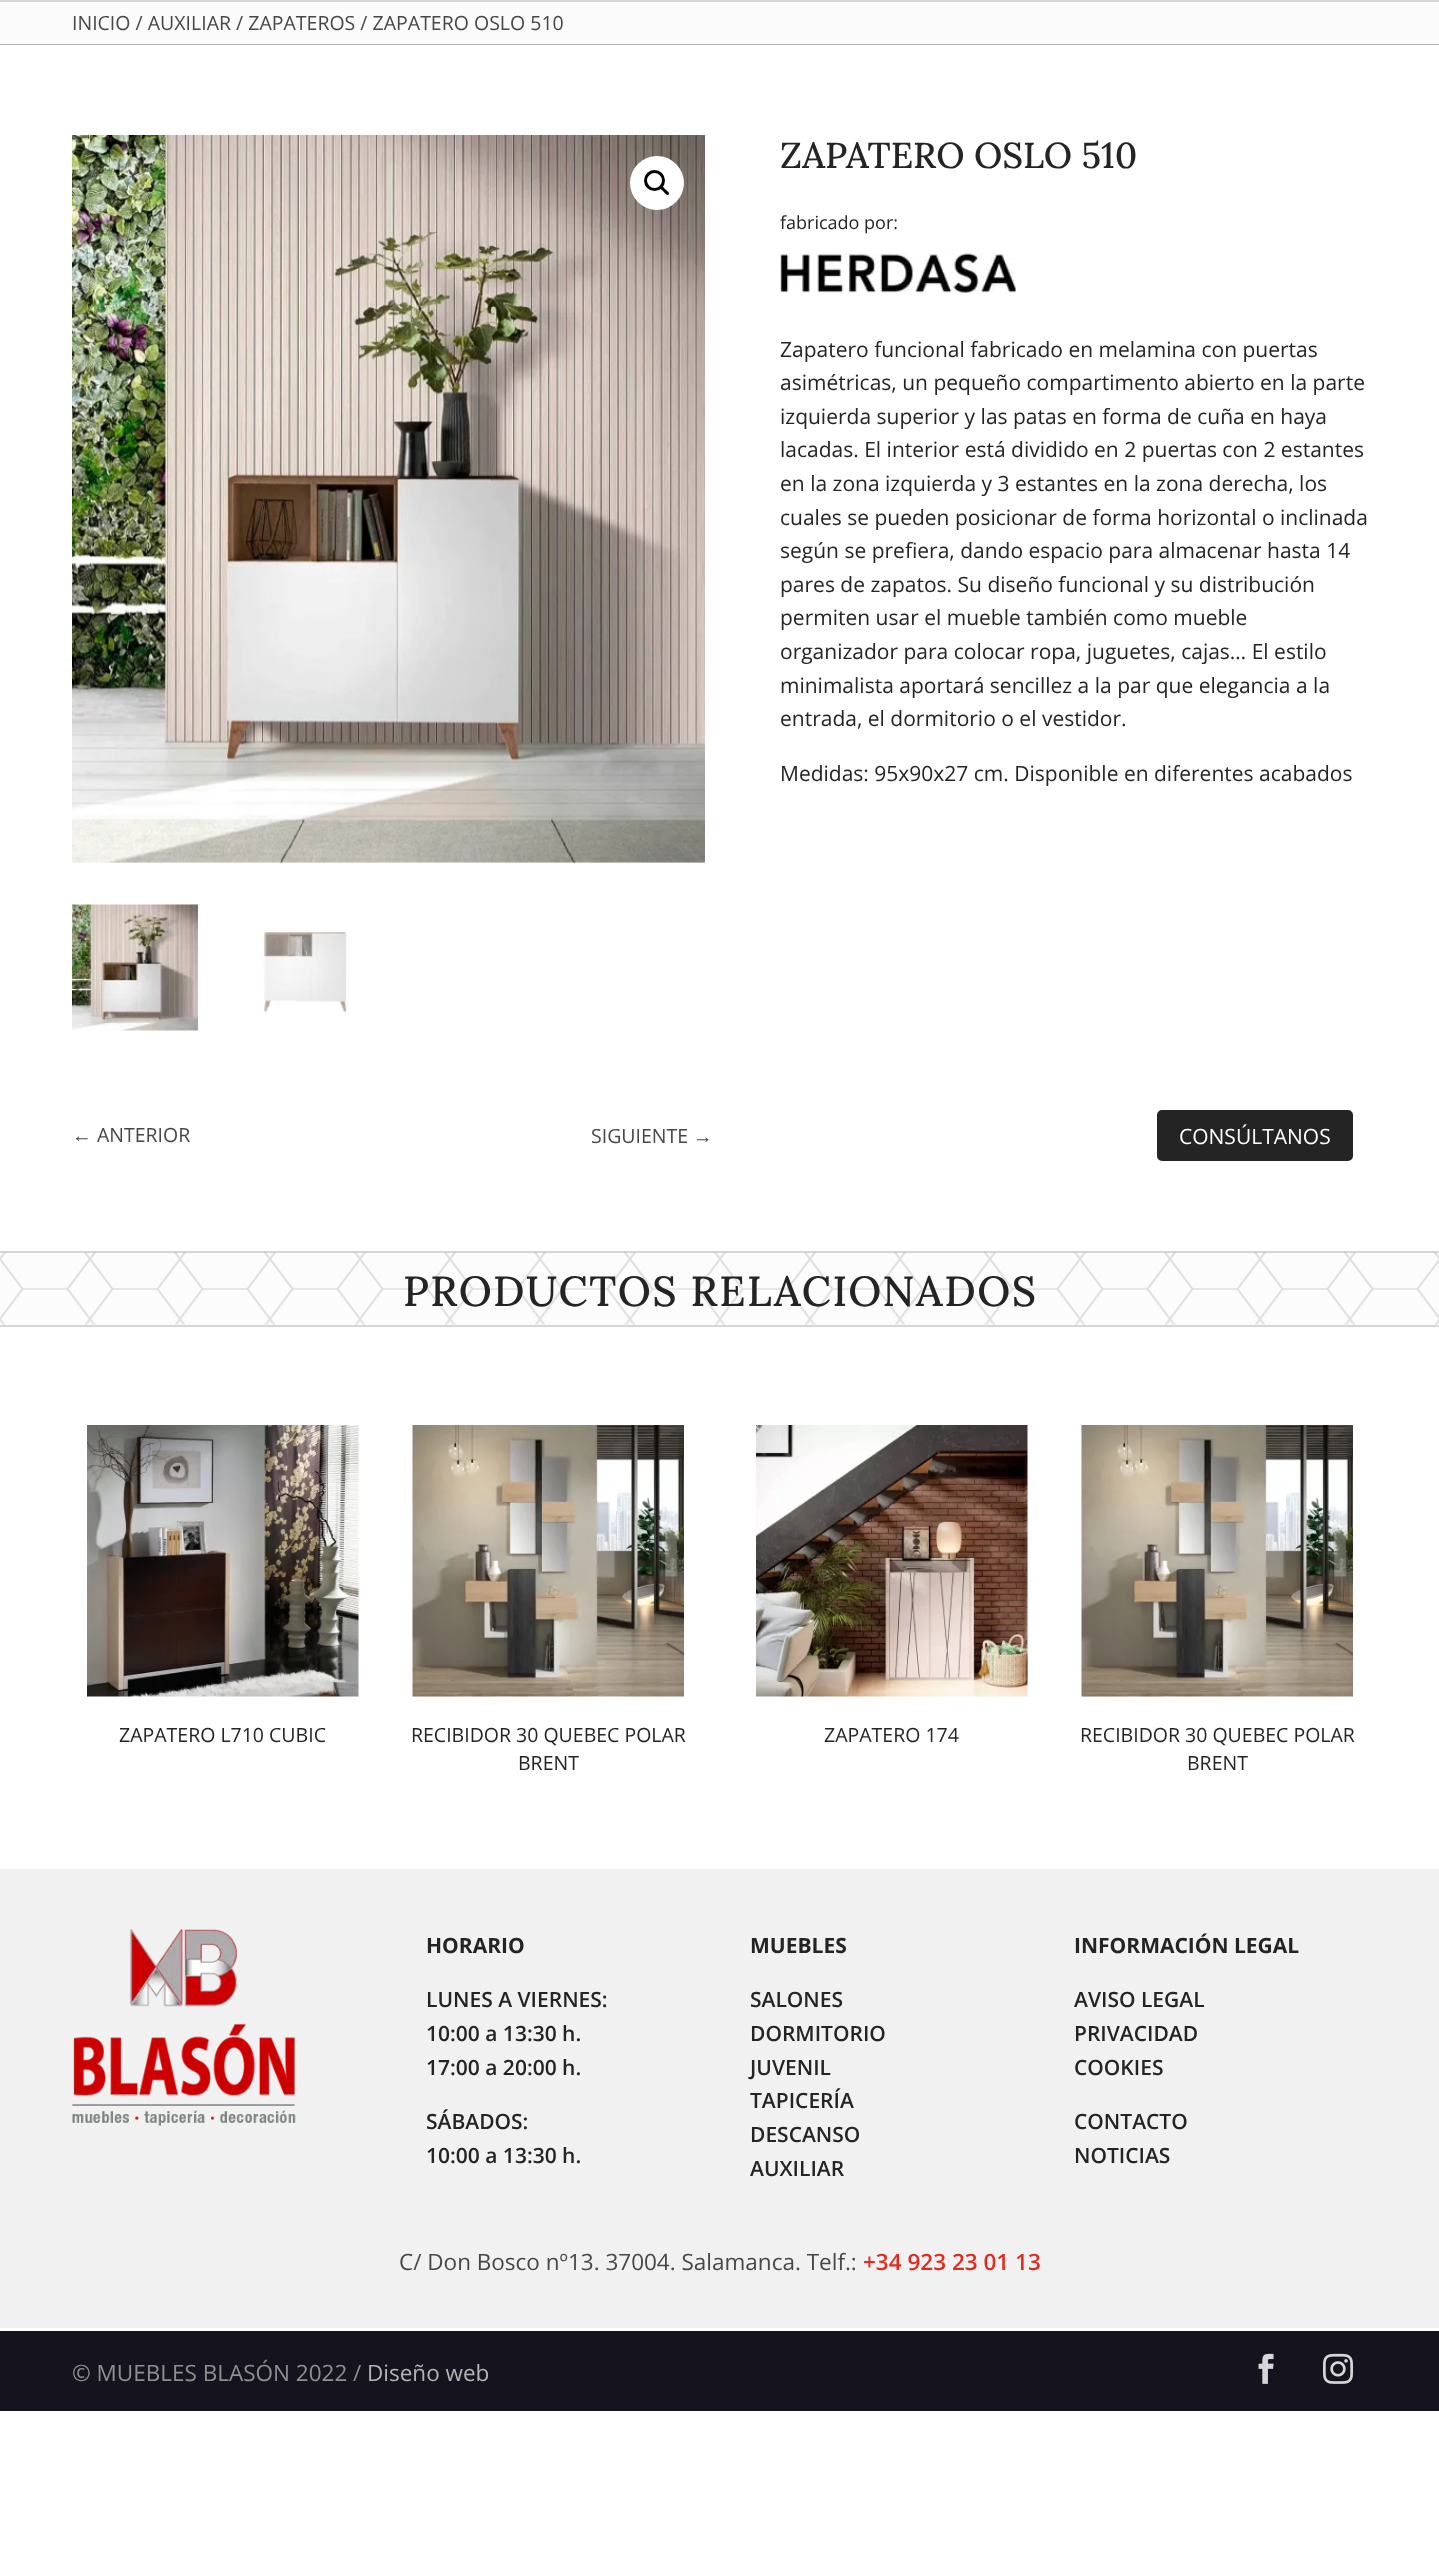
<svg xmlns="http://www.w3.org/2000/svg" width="1439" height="2553">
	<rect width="100%" height="100%" fill="#FFFFFF" />
	<rect x="0" y="2" width="1439" height="42" fill="#FBFBFB" />
	<rect x="0" y="0" width="1439" height="2" fill="#D6D6D6" />
	<rect x="0" y="44" width="1439" height="1" fill="#B3B3B3" />
	<text x="72" y="30" font-family="Open Sans" font-size="19.5" fill="#474747">INICIO / AUXILIAR / ZAPATEROS / ZAPATERO OSLO 510</text>
	<image x="72" y="135" width="633" height="728" href="assets/img1.png" />
	<circle cx="657" cy="183" r="27" fill="#FFFFFF" />
	<circle cx="654.5" cy="180.5" r="9" fill="none" stroke="#000000" stroke-width="3" />
	<path d="M660.5 186.5C662 184.5 664.5 188.5 665.5 189.5C666.5 190.5 670.5 193 668.5 194.5C667 196.5 664.5 192.5 663.5 191.5C662.5 190.5 658.5 188 660.5 186.5Z" fill="#000000" />
	<image x="72" y="904" width="126" height="127" href="assets/img2.png" />
	<image x="260" y="930" width="89" height="85" href="assets/img3.png" />
	<text x="780" y="168" font-family="Lora" font-size="36" font-weight="500" fill="#242424">ZAPATERO OSLO 510</text>
	<text x="780" y="229" font-family="Open Sans" font-size="18" fill="#242424">fabricado por:</text>
	<image x="780" y="253" width="236" height="40" href="assets/img4.png" />
	<g font-family="Open Sans" font-size="21" fill="#242424">
		<text x="780" y="357">Zapatero funcional fabricado en melamina con puertas</text>
		<text x="780" y="390">asimétricas, un pequeño compartimento abierto en la parte</text>
		<text x="780" y="424">izquierda superior y las patas en forma de cuña en haya</text>
		<text x="780" y="457">lacadas. El interior está dividido en 2 puertas con 2 estantes</text>
		<text x="780" y="491">en la zona izquierda y 3 estantes en la zona derecha, los</text>
		<text x="780" y="525">cuales se pueden posicionar de forma horizontal o inclinada</text>
		<text x="780" y="558">según se prefiera, dando espacio para almacenar hasta 14</text>
		<text x="780" y="592">pares de zapatos. Su diseño funcional y su distribución</text>
		<text x="780" y="625">permiten usar el mueble también como mueble</text>
		<text x="780" y="659">organizador para colocar ropa, juguetes, cajas… El estilo</text>
		<text x="780" y="693">minimalista aportará sencillez a la par que elegancia a la</text>
		<text x="780" y="726">entrada, el dormitorio o el vestidor.</text>
		<text x="780" y="781">Medidas: 95x90x27 cm. Disponible en diferentes acabados</text>
	</g>
	<text x="72" y="1142" font-family="Liberation Sans" font-size="19.5" fill="#474747">←</text>
	<g font-family="Open Sans" font-size="19.5" fill="#474747">
		<text x="97" y="1142">ANTERIOR</text>
		<text x="591" y="1143">SIGUIENTE</text>
	</g>
	<text x="693" y="1143" font-family="Liberation Sans" font-size="19.5" fill="#474747">→</text>
	<rect x="1158" y="1111" width="194" height="49" rx="4" fill="#242424" stroke="#242424" stroke-width="2" />
	<text x="1179" y="1144" font-family="Open Sans" font-size="21" fill="#FFFFFF">CONSÚLTANOS</text>
	<rect x="0" y="1253" width="1439" height="72" fill="#FCFCFC" />
	<rect x="0" y="1251" width="1439" height="2" fill="#D6D6D6" />
	<rect x="0" y="1325" width="1439" height="2" fill="#D6D6D6" />
	<image x="0" y="1252" width="1439" height="73" href="assets/img5.png" />
	<text x="403" y="1306" font-family="Lora" font-size="42" font-weight="500" letter-spacing="1.5" fill="#242424">PRODUCTOS RELACIONADOS</text>
	<image x="87" y="1425" width="272" height="272" href="assets/img6.png" />
	<text x="119" y="1742" font-family="Open Sans" font-size="19.5" fill="#242424">ZAPATERO L710 CUBIC</text>
	<image x="412" y="1425" width="272" height="272" href="assets/img7.png" />
	<g font-family="Open Sans" font-size="19.5" fill="#242424">
		<text x="411" y="1742">RECIBIDOR 30 QUEBEC POLAR</text>
		<text x="518" y="1770">BRENT</text>
	</g>
	<image x="756" y="1425" width="272" height="272" href="assets/img8.png" />
	<text x="824" y="1742" font-family="Open Sans" font-size="19.5" fill="#242424">ZAPATERO 174</text>
	<image x="1081" y="1425" width="272" height="272" href="assets/img7.png" />
	<g font-family="Open Sans" font-size="19.5" fill="#242424">
		<text x="1080" y="1742">RECIBIDOR 30 QUEBEC POLAR</text>
		<text x="1187" y="1770">BRENT</text>
	</g>
	<rect x="0" y="1869" width="1439" height="459" fill="#F1F1F1" />
	<image x="72" y="1929" width="224" height="197" href="assets/img9.png" />
	<text x="426" y="1953" font-family="Open Sans" font-size="21" font-weight="700" fill="#242424">HORARIO</text>
	<g font-family="Open Sans" font-size="21" font-weight="600" fill="#242424">
		<text x="426" y="2007">LUNES A VIERNES:</text>
		<text x="426" y="2041">10:00 a 13:30 h.</text>
		<text x="426" y="2075">17:00 a 20:00 h.</text>
		<text x="426" y="2129">SÁBADOS:</text>
		<text x="426" y="2163">10:00 a 13:30 h.</text>
	</g>
	<text x="750" y="1953" font-family="Open Sans" font-size="21" font-weight="700" fill="#242424">MUEBLES</text>
	<g font-family="Open Sans" font-size="21" font-weight="600" fill="#242424">
		<text x="750" y="2007">SALONES</text>
		<text x="750" y="2041">DORMITORIO</text>
		<text x="750" y="2075">JUVENIL</text>
		<text x="750" y="2108">TAPICERÍA</text>
		<text x="750" y="2142">DESCANSO</text>
		<text x="750" y="2176">AUXILIAR</text>
	</g>
	<text x="1074" y="1953" font-family="Open Sans" font-size="21" font-weight="700" fill="#242424">INFORMACIÓN LEGAL</text>
	<g font-family="Open Sans" font-size="21" font-weight="600" fill="#242424">
		<text x="1074" y="2007">AVISO LEGAL</text>
		<text x="1074" y="2041">PRIVACIDAD</text>
		<text x="1074" y="2075">COOKIES</text>
		<text x="1074" y="2129">CONTACTO</text>
		<text x="1074" y="2163">NOTICIAS</text>
	</g>
	<text x="399" y="2270" font-family="Open Sans" font-size="22.5" fill="#474747">C/ Don Bosco nº13. 37004. Salamanca. Telf.:</text>
	<text x="863" y="2270" font-family="Open Sans" font-size="22.5" font-weight="600" fill="#E02B20">+34 923 23 01 13</text>
	<rect x="0" y="2331" width="1439" height="80" fill="#15141E" />
	<text x="72" y="2381" font-family="Open Sans" font-size="22.5" fill="#8F8F8F">© MUEBLES BLASÓN 2022 /</text>
	<text x="367" y="2381" font-family="Open Sans" font-size="22.5" fill="#B3B3B3">Diseño web</text>
	<image x="1258" y="2353" width="16" height="31" href="assets/img10.png" />
	<image x="1323" y="2353" width="30" height="31" href="assets/img11.png" />
</svg>
